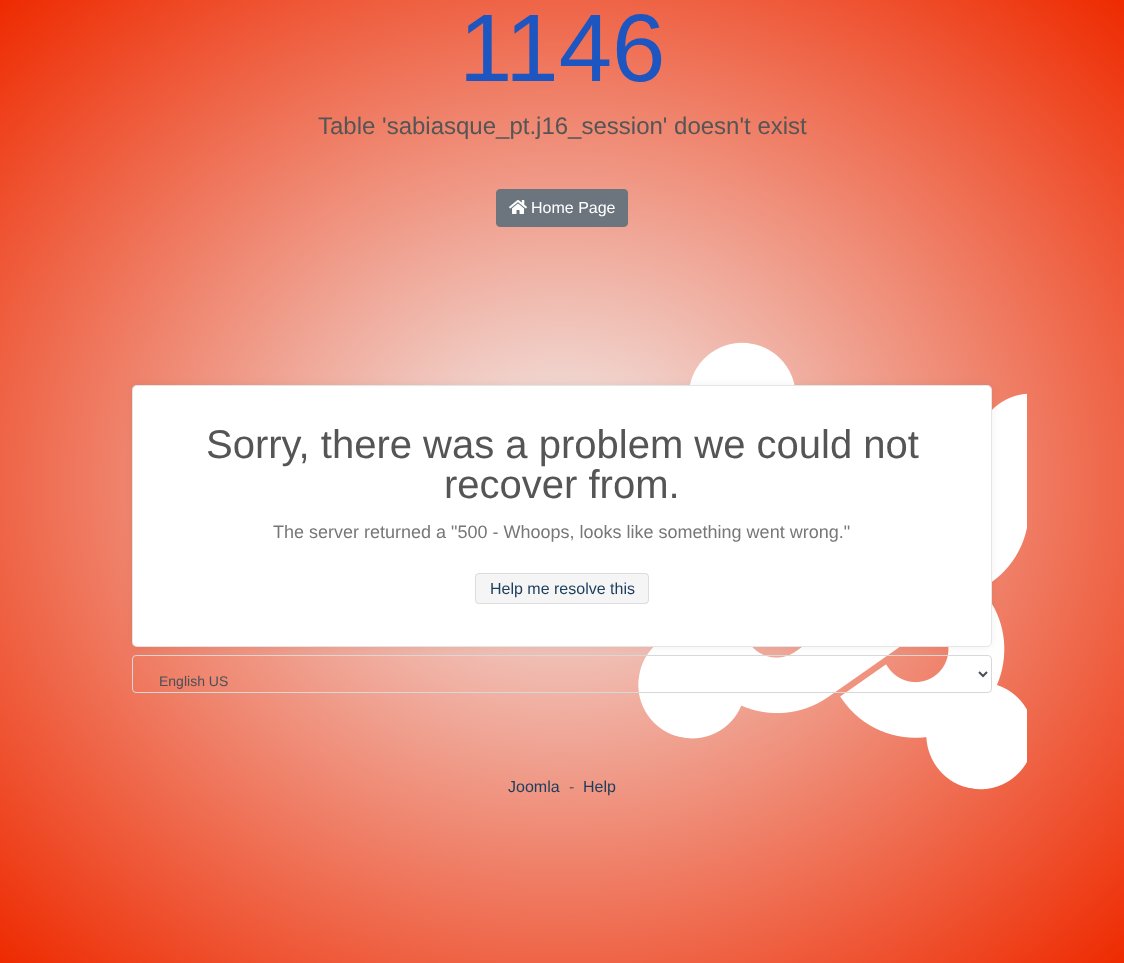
<svg xmlns="http://www.w3.org/2000/svg" width="1124" height="963">
	<defs>
		<radialGradient id="g1" gradientUnits="userSpaceOnUse" cx="0" cy="0" r="1" gradientTransform="matrix(795 0 0 681 562 482)"><stop offset="0" stop-color="#F1F1F1" /><stop offset="1" stop-color="#EE2A00" /></radialGradient>
	</defs>
	<rect width="100%" height="100%" fill="#FFFFFF" />
	<rect x="0" y="0" width="1124" height="963" fill="url(#g1)" />
	<text x="459" y="81" font-family="Liberation Sans" font-size="96" fill="#1D55C1">1146</text>
	<text x="318" y="134" font-family="Liberation Sans" font-size="24" fill="#555555">Table 'sabiasque_pt.j16_session' doesn't exist</text>
	<rect x="496.5" y="189.5" width="131" height="37" rx="3.5" fill="#6C757D" stroke="#6C757D" />
	<image x="509" y="200" width="18" height="14" href="assets/img1.png" />
	<text x="531" y="213" font-family="Liberation Sans" font-size="16" fill="#FFFFFF">Home Page</text>
	<image x="638" y="342" width="389" height="448" href="assets/img2.png" />
	<rect x="132.5" y="655.5" width="859" height="37" rx="3.5" fill="none" stroke="#D8D8D8" />
	<rect x="132" y="385" width="860" height="262" rx="5" fill="#000000" fill-opacity="0.05" filter="blur(5px)" />
	<rect x="132" y="385" width="860" height="262" rx="5" fill="#FFFFFF" />
	<rect x="132.5" y="385.5" width="859" height="261" rx="4.5" fill="none" stroke="#000000" stroke-opacity="0.1" />
	<g font-family="Liberation Sans" font-size="40" fill="#555555">
		<text x="206" y="458">Sorry, there was a problem we could not</text>
		<text x="444" y="498">recover from.</text>
	</g>
	<text x="273" y="538" font-family="Liberation Sans" font-size="18" fill="#777777">The server returned a "500 - Whoops, looks like something went wrong."</text>
	<rect x="475" y="573" width="174" height="31" rx="4" fill="#F5F5F5" />
	<rect x="475.5" y="573.5" width="173" height="30" rx="3.5" fill="none" stroke="#000000" stroke-opacity="0.1" />
	<text x="490" y="594" font-family="Liberation Sans" font-size="16" fill="#1C3D5C">Help me resolve this</text>
	<path d="M979 672L983 676L987 672" fill="none" stroke="#495057" stroke-width="2" />
	<text x="159" y="686" font-family="Liberation Sans" font-size="14" fill="#495057">English US</text>
	<text x="508" y="792" font-family="Liberation Sans" font-size="16" fill="#1C3D5C">Joomla</text>
	<text x="569" y="792" font-family="Liberation Sans" font-size="16" fill="#555555">-</text>
	<text x="583" y="792" font-family="Liberation Sans" font-size="16" fill="#1C3D5C">Help</text>
</svg>
